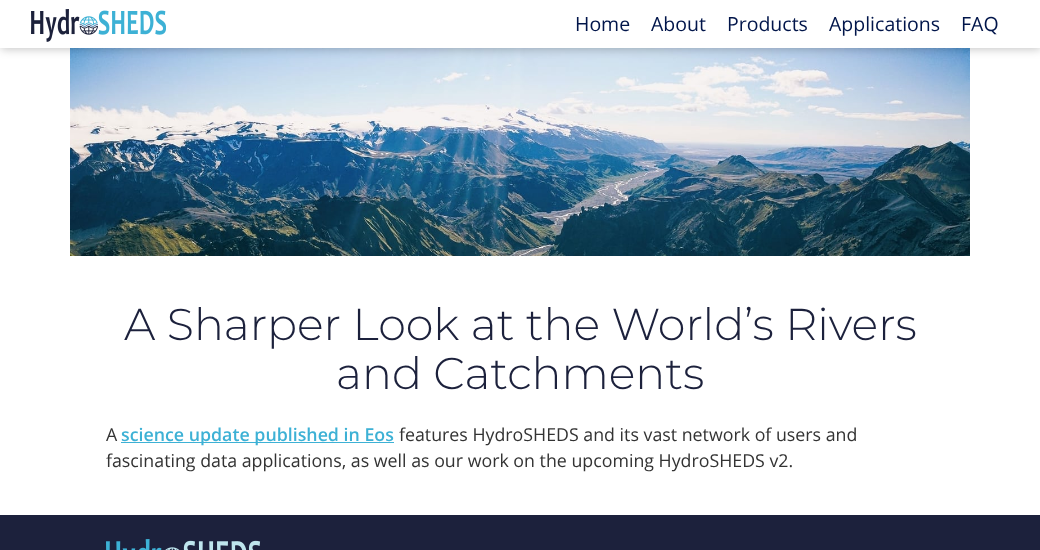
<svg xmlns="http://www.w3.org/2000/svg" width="1040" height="550">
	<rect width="100%" height="100%" fill="#FFFFFF" />
	<image x="70" y="48" width="900" height="208" href="assets/img2.png" />
	<rect x="1" y="1" width="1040" height="48" fill="#000000" fill-opacity="0.24" filter="blur(5px)" />
	<rect x="0" y="0" width="1040" height="48" fill="#FFFFFF" />
	<image x="31" y="9" width="135" height="33" href="assets/img1.png" />
	<g font-family="Open Sans" font-size="19.5" fill="#01154A">
		<text x="575" y="31">Home</text>
		<text x="651" y="31">About</text>
		<text x="727" y="31">Products</text>
		<text x="829" y="31">Applications</text>
		<text x="961" y="31">FAQ</text>
	</g>
	<g font-family="Montserrat" font-size="44.5" font-weight="300" fill="#1C213C">
		<text x="124" y="340">A Sharper Look at the World’s Rivers</text>
		<text x="336" y="389">and Catchments</text>
	</g>
	<text x="106" y="441" font-family="Open Sans" font-size="17.8" fill="#333333">A</text>
	<rect x="121" y="442" width="273" height="1" fill="#3DB1D5" />
	<text x="121" y="441" font-family="Open Sans" font-size="17.8" font-weight="600" fill="#3DB1D5">science update published in Eos</text>
	<g font-family="Open Sans" font-size="17.8" fill="#333333">
		<text x="399" y="441">features HydroSHEDS and its vast network of users and</text>
		<text x="106" y="467">fascinating data applications, as well as our work on the upcoming HydroSHEDS v2.</text>
	</g>
	<rect x="0" y="515" width="1040" height="35" fill="#1C213C" />
	<image x="106" y="539" width="155" height="11" href="assets/img3.png" />
</svg>
